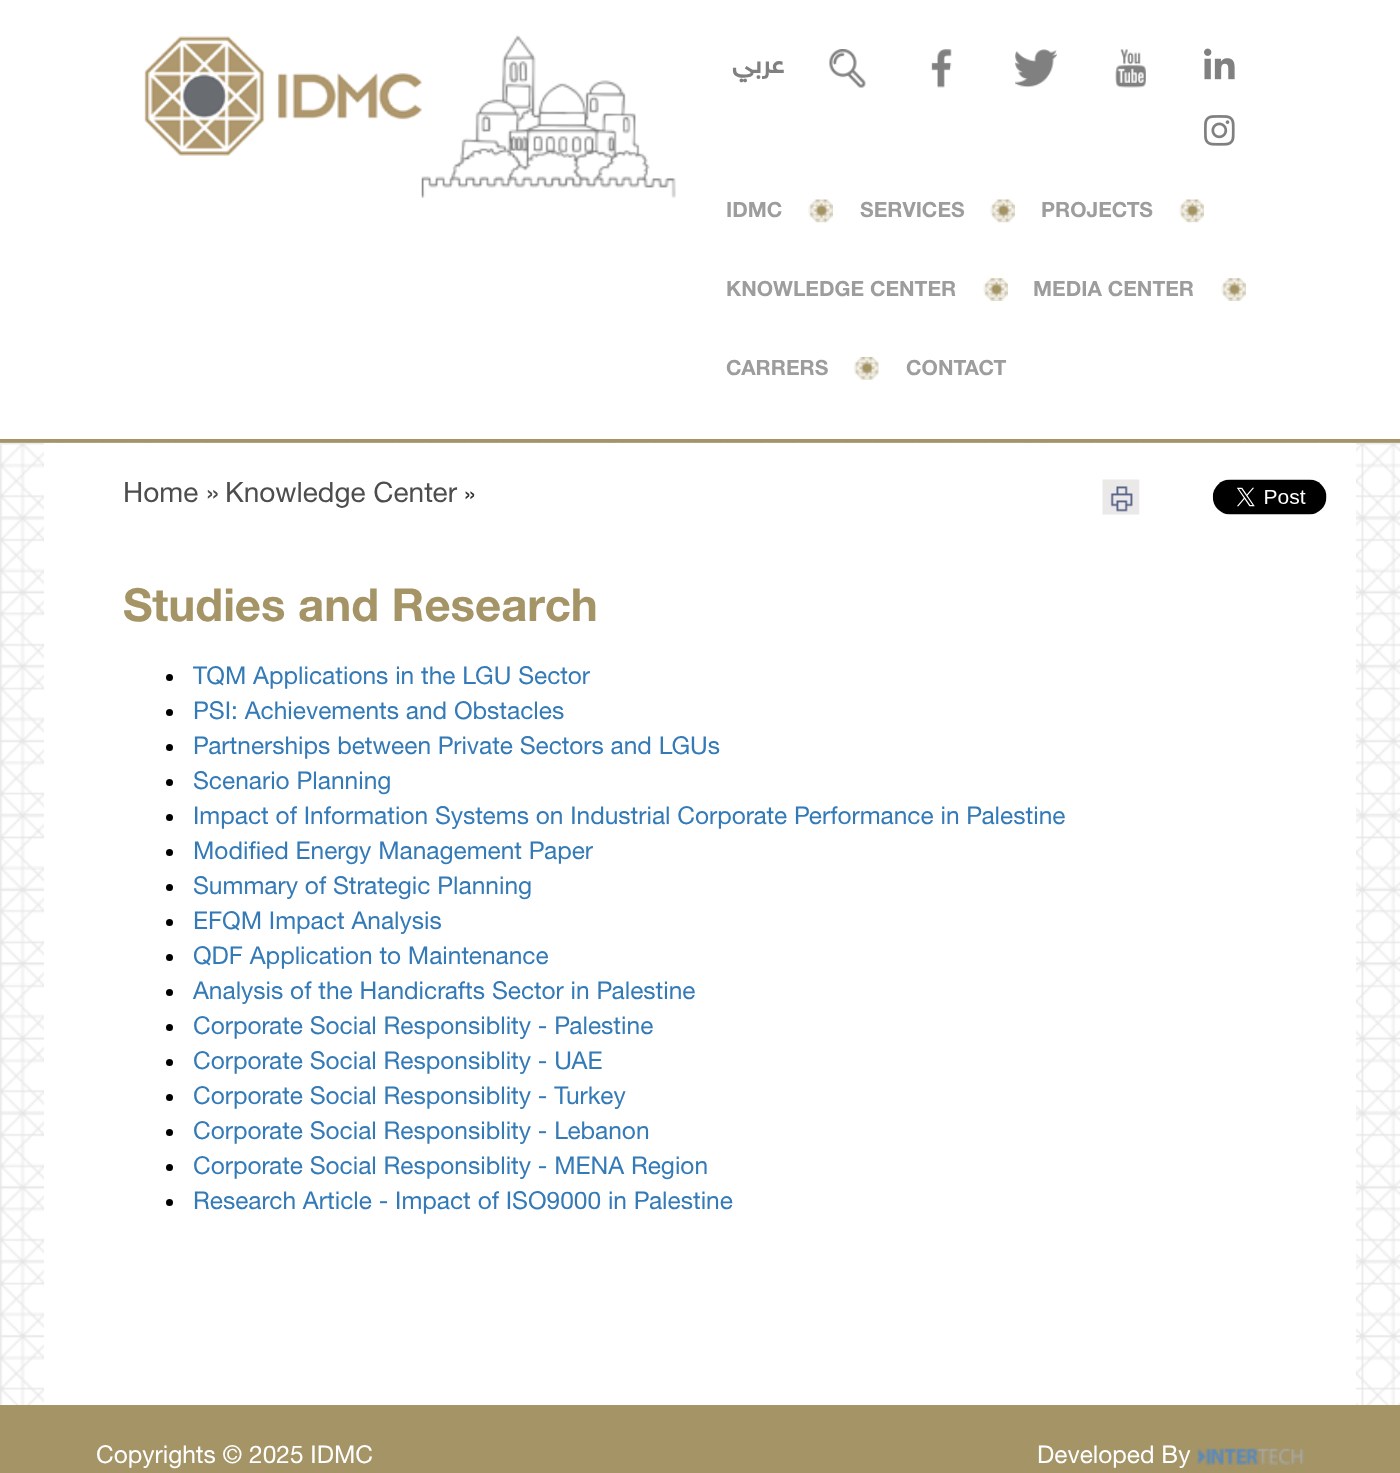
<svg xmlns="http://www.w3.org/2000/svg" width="1400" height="1473">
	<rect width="100%" height="100%" fill="#FFFFFF" />
	<rect x="0" y="439" width="1400" height="4" fill="#A49466" />
	<image x="144" y="36" width="278" height="120" href="assets/img1.png" />
	<image x="421" y="35" width="255" height="163" href="assets/img2.png" />
	<text x="784" y="73" font-family="'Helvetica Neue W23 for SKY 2'" font-size="28" font-weight="700" direction="rtl" fill="#808080">عربي</text>
	<image x="829" y="49" width="37" height="39" href="assets/img3.png" />
	<image x="931" y="49" width="21" height="39" href="assets/img4.png" />
	<image x="1015" y="49" width="42" height="39" href="assets/img5.png" />
	<image x="1115" y="49" width="31" height="39" href="assets/img6.png" />
	<image x="1204" y="48" width="31" height="32" href="assets/img7.png" />
	<image x="1204" y="115" width="31" height="31" href="assets/img8.png" />
	<text x="726" y="217" font-family="'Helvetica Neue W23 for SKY'" font-size="21" font-weight="700" fill="#9D9D9D">IDMC</text>
	<image x="808" y="199" width="25" height="24" href="assets/img9.png" />
	<text x="860" y="217" font-family="'Helvetica Neue W23 for SKY'" font-size="21" font-weight="700" fill="#9D9D9D">SERVICES</text>
	<image x="990" y="199" width="25" height="24" href="assets/img10.png" />
	<text x="1041" y="217" font-family="'Helvetica Neue W23 for SKY'" font-size="21" font-weight="700" fill="#9D9D9D">PROJECTS</text>
	<image x="1179" y="199" width="25" height="24" href="assets/img11.png" />
	<text x="726" y="296" font-family="'Helvetica Neue W23 for SKY'" font-size="21" font-weight="700" fill="#9D9D9D">KNOWLEDGE CENTER</text>
	<image x="983" y="278" width="25" height="23" href="assets/img12.png" />
	<text x="1033" y="296" font-family="'Helvetica Neue W23 for SKY'" font-size="21" font-weight="700" fill="#9D9D9D">MEDIA CENTER</text>
	<image x="1221" y="278" width="25" height="23" href="assets/img13.png" />
	<text x="726" y="375" font-family="'Helvetica Neue W23 for SKY'" font-size="21" font-weight="700" fill="#9D9D9D">CARRERS</text>
	<image x="854" y="357" width="25" height="23" href="assets/img14.png" />
	<text x="906" y="375" font-family="'Helvetica Neue W23 for SKY'" font-size="21" font-weight="700" fill="#9D9D9D">CONTACT</text>
	<image x="0" y="442" width="1400" height="963" href="assets/img15.png" />
	<rect x="44" y="443" width="1312" height="962" fill="#FFFFFF" />
	<g font-family="'Helvetica Neue W23 for SKY'" font-size="28" fill="#4D4D4D">
		<text x="123" y="502">Home »</text>
		<text x="225" y="502">Knowledge Center</text>
	</g>
	<text x="464" y="502" font-family="'Helvetica Neue W23 for SKY'" font-size="24.5" fill="#333333">»</text>
	<image x="1102" y="479" width="38" height="36" href="assets/img16.png" />
	<image x="1212" y="479" width="115" height="36" href="assets/img17.png" />
	<text x="123" y="621" font-family="'Helvetica Neue W23 for SKY'" font-size="45.5" font-weight="700" fill="#A49466">Studies and Research</text>
	<circle cx="169.5" cy="677.5" r="3.5" fill="#000000" />
	<text x="193" y="684" font-family="'Helvetica Neue W23 for SKY'" font-size="24.5" fill="#337AB7">TQM Applications in the LGU Sector</text>
	<circle cx="169.5" cy="712.5" r="3.5" fill="#000000" />
	<text x="193" y="719" font-family="'Helvetica Neue W23 for SKY'" font-size="24.5" fill="#337AB7">PSI: Achievements and Obstacles</text>
	<circle cx="169.5" cy="747.5" r="3.5" fill="#000000" />
	<text x="193" y="754" font-family="'Helvetica Neue W23 for SKY'" font-size="24.5" fill="#337AB7">Partnerships between Private Sectors and LGUs</text>
	<circle cx="169.5" cy="782.5" r="3.5" fill="#000000" />
	<text x="193" y="789" font-family="'Helvetica Neue W23 for SKY'" font-size="24.5" fill="#337AB7">Scenario Planning</text>
	<circle cx="169.5" cy="817.5" r="3.5" fill="#000000" />
	<text x="193" y="824" font-family="'Helvetica Neue W23 for SKY'" font-size="24.5" fill="#337AB7">Impact of Information Systems on Industrial Corporate Performance in Palestine</text>
	<circle cx="169.5" cy="852.5" r="3.5" fill="#000000" />
	<text x="193" y="859" font-family="'Helvetica Neue W23 for SKY'" font-size="24.5" fill="#337AB7">Modified Energy Management Paper</text>
	<circle cx="169.5" cy="887.5" r="3.5" fill="#000000" />
	<text x="193" y="894" font-family="'Helvetica Neue W23 for SKY'" font-size="24.5" fill="#337AB7">Summary of Strategic Planning</text>
	<circle cx="169.5" cy="922.5" r="3.5" fill="#000000" />
	<text x="193" y="929" font-family="'Helvetica Neue W23 for SKY'" font-size="24.5" fill="#337AB7">EFQM Impact Analysis</text>
	<circle cx="169.5" cy="957.5" r="3.5" fill="#000000" />
	<text x="193" y="964" font-family="'Helvetica Neue W23 for SKY'" font-size="24.5" fill="#337AB7">QDF Application to Maintenance</text>
	<circle cx="169.5" cy="992.5" r="3.5" fill="#000000" />
	<text x="193" y="999" font-family="'Helvetica Neue W23 for SKY'" font-size="24.5" fill="#337AB7">Analysis of the Handicrafts Sector in Palestine</text>
	<circle cx="169.5" cy="1027.5" r="3.5" fill="#000000" />
	<text x="193" y="1034" font-family="'Helvetica Neue W23 for SKY'" font-size="24.5" fill="#337AB7">Corporate Social Responsiblity - Palestine</text>
	<circle cx="169.5" cy="1062.5" r="3.5" fill="#000000" />
	<text x="193" y="1069" font-family="'Helvetica Neue W23 for SKY'" font-size="24.5" fill="#337AB7">Corporate Social Responsiblity - UAE</text>
	<circle cx="169.5" cy="1097.5" r="3.5" fill="#000000" />
	<text x="193" y="1104" font-family="'Helvetica Neue W23 for SKY'" font-size="24.5" fill="#337AB7">Corporate Social Responsiblity - Turkey</text>
	<circle cx="169.5" cy="1132.5" r="3.5" fill="#000000" />
	<text x="193" y="1139" font-family="'Helvetica Neue W23 for SKY'" font-size="24.5" fill="#337AB7">Corporate Social Responsiblity - Lebanon</text>
	<circle cx="169.5" cy="1167.5" r="3.5" fill="#000000" />
	<text x="193" y="1174" font-family="'Helvetica Neue W23 for SKY'" font-size="24.5" fill="#337AB7">Corporate Social Responsiblity - MENA Region</text>
	<circle cx="169.5" cy="1202.5" r="3.5" fill="#000000" />
	<text x="193" y="1209" font-family="'Helvetica Neue W23 for SKY'" font-size="24.5" fill="#337AB7">Research Article - Impact of ISO9000 in Palestine</text>
	<rect x="0" y="1405" width="1400" height="68" fill="#A49466" />
	<g font-family="'Helvetica Neue W23 for SKY'" font-size="24.5" fill="#FFFFFF">
		<text x="96" y="1463">Copyrights © 2025 IDMC</text>
		<text x="1037" y="1463">Developed By</text>
	</g>
	<image x="1197" y="1448" width="107" height="17" href="assets/img18.png" />
</svg>
